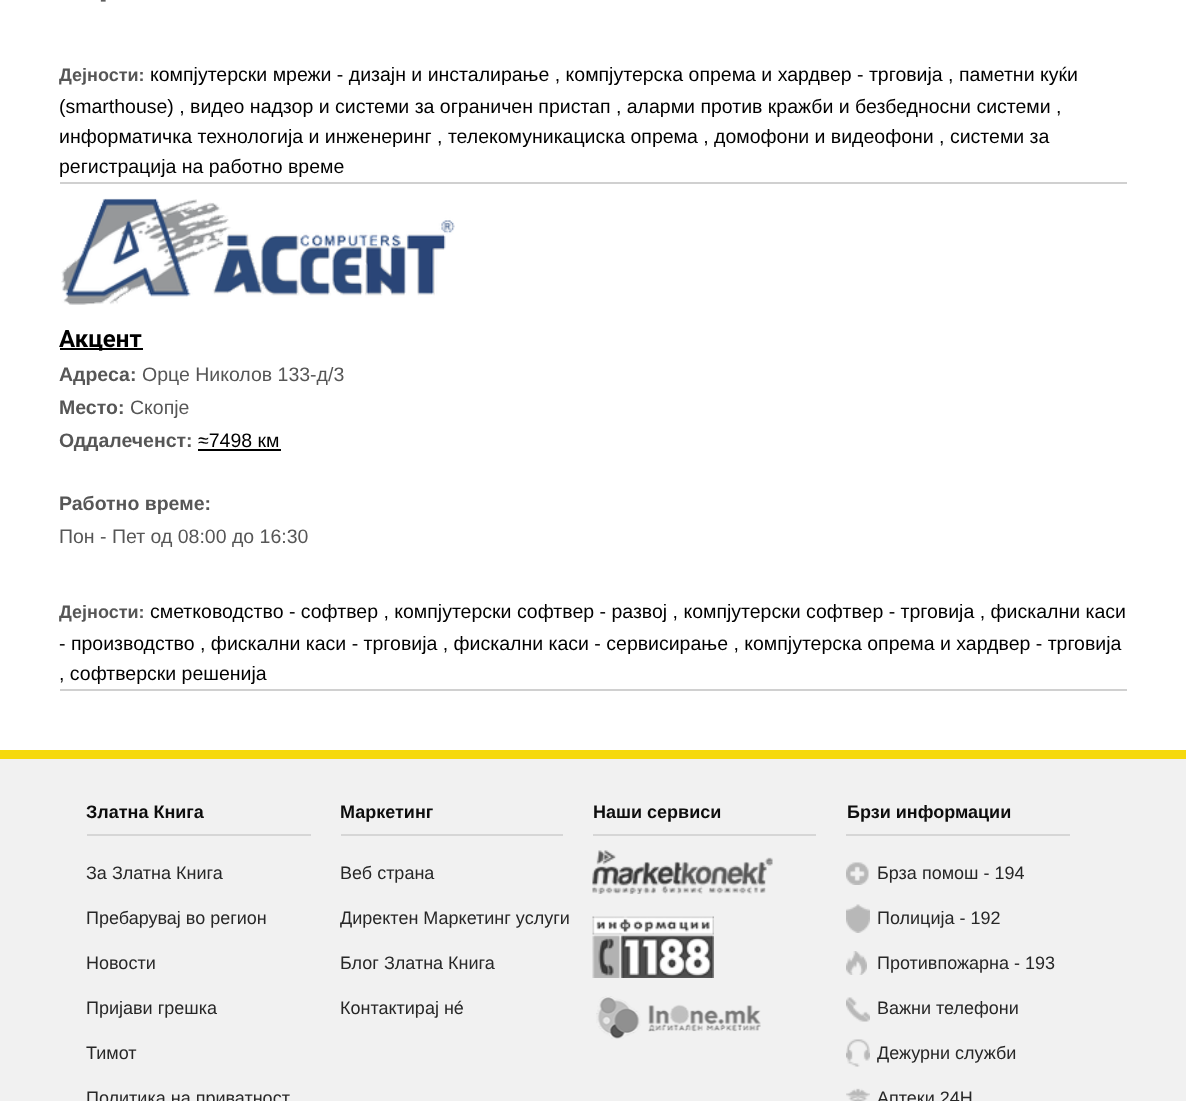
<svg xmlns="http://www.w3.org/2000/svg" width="1186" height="1101">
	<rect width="100%" height="100%" fill="#FFFFFF" />
	<rect x="60" y="182" width="1067" height="2" fill="#D0D0D0" />
	<text x="100" y="6" font-family="Liberation Sans" font-size="19.5" fill="#565656">-</text>
	<text x="59" y="81" font-family="Liberation Sans" font-size="18" font-weight="700" fill="#565656">Дејности:</text>
	<g font-family="Liberation Sans" font-size="19.5" fill="#000000">
		<text x="150" y="81">компјутерски мрежи - дизајн и инсталирање , компјутерска опрема и хардвер - трговија , паметни куќи</text>
		<text x="59" y="113">(smarthouse) , видео надзор и системи за ограничен пристап , аларми против кражби и безбедносни системи ,</text>
		<text x="59" y="143">информатичка технологија и инженеринг , телекомуникациска опрема , домофони и видеофони , системи за</text>
		<text x="59" y="173">регистрација на работно време</text>
	</g>
	<rect x="60" y="689" width="1067" height="2" fill="#D0D0D0" />
	<image x="61" y="198" width="394" height="107" href="assets/img1.png" />
	<rect x="60" y="348" width="83" height="2" fill="#000000" />
	<text x="59" y="347" font-family="Roboto" font-size="24" font-weight="700" fill="#000000">Акцент</text>
	<text x="59" y="381" font-family="Liberation Sans" font-size="19.5" font-weight="700" fill="#565656">Адреса:</text>
	<text x="142" y="381" font-family="Liberation Sans" font-size="19.5" fill="#565656">Орце Николов 133-д/3</text>
	<text x="59" y="414" font-family="Liberation Sans" font-size="19.5" font-weight="700" fill="#565656">Место:</text>
	<text x="130" y="414" font-family="Liberation Sans" font-size="19.5" fill="#565656">Скопје</text>
	<text x="59" y="447" font-family="Liberation Sans" font-size="19.5" font-weight="700" fill="#565656">Оддалеченст:</text>
	<text x="198" y="447" font-family="Liberation Sans" font-size="19.5" fill="#000000">≈7498 км</text>
	<rect x="198" y="449" width="83" height="2" fill="#000000" />
	<text x="59" y="510" font-family="Liberation Sans" font-size="19.5" font-weight="700" fill="#565656">Работно време:</text>
	<text x="59" y="543" font-family="Liberation Sans" font-size="19.5" fill="#565656">Пон - Пет од 08:00 до 16:30</text>
	<text x="59" y="618" font-family="Liberation Sans" font-size="18" font-weight="700" fill="#565656">Дејности:</text>
	<g font-family="Liberation Sans" font-size="19.5" fill="#000000">
		<text x="150" y="618">сметководство - софтвер , компјутерски софтвер - развој , компјутерски софтвер - трговија , фискални каси</text>
		<text x="59" y="650">- производство , фискални каси - трговија , фискални каси - сервисирање , компјутерска опрема и хардвер - трговија</text>
		<text x="59" y="680">, софтверски решенија</text>
	</g>
	<rect x="0" y="759" width="1186" height="342" fill="#F1F1F1" />
	<rect x="0" y="750" width="1186" height="9" fill="#F6D90D" />
	<rect x="87" y="834" width="224" height="2" fill="#D6D6D6" />
	<text x="86" y="818" font-family="Liberation Sans" font-size="18" font-weight="700" fill="#0D0D0D">Златна Книга</text>
	<g font-family="Liberation Sans" font-size="18" fill="#272727">
		<text x="86" y="879">За Златна Книга</text>
		<text x="86" y="924">Пребарувај во регион</text>
		<text x="86" y="969">Новости</text>
		<text x="86" y="1014">Пријави грешка</text>
		<text x="86" y="1059">Тимот</text>
		<text x="86" y="1104">Политика на приватност</text>
	</g>
	<rect x="341" y="834" width="222" height="2" fill="#D6D6D6" />
	<text x="340" y="818" font-family="Liberation Sans" font-size="18" font-weight="700" fill="#0D0D0D">Маркетинг</text>
	<g font-family="Liberation Sans" font-size="18" fill="#272727">
		<text x="340" y="879">Веб страна</text>
		<text x="340" y="924">Директен Маркетинг услуги</text>
		<text x="340" y="969">Блог Златна Книга</text>
		<text x="340" y="1014">Контактирај нé</text>
	</g>
	<rect x="593" y="834" width="223" height="2" fill="#D6D6D6" />
	<text x="593" y="818" font-family="Liberation Sans" font-size="18" font-weight="700" fill="#0D0D0D">Наши сервиси</text>
	<image x="592" y="850" width="181" height="44" href="assets/img2.png" />
	<image x="592" y="916" width="122" height="62" href="assets/img3.png" />
	<image x="596" y="996" width="165" height="43" href="assets/img4.png" />
	<rect x="846" y="834" width="224" height="2" fill="#D6D6D6" />
	<text x="847" y="818" font-family="Liberation Sans" font-size="18" font-weight="700" fill="#0D0D0D">Брзи информации</text>
	<image x="846" y="862" width="23" height="23" href="assets/img5.png" />
	<text x="877" y="879" font-family="Liberation Sans" font-size="18" fill="#272727">Брза помош - 194</text>
	<image x="846" y="904" width="24" height="29" href="assets/img6.png" />
	<text x="877" y="924" font-family="Liberation Sans" font-size="18" fill="#272727">Полиција - 192</text>
	<image x="846" y="951" width="21" height="24" href="assets/img7.png" />
	<text x="877" y="969" font-family="Liberation Sans" font-size="18" fill="#272727">Противпожарна - 193</text>
	<image x="846" y="997" width="24" height="25" href="assets/img8.png" />
	<text x="877" y="1014" font-family="Liberation Sans" font-size="18" fill="#272727">Важни телефони</text>
	<image x="846" y="1039" width="24" height="28" href="assets/img9.png" />
	<text x="877" y="1059" font-family="Liberation Sans" font-size="18" fill="#272727">Дежурни служби</text>
	<image x="846" y="1088" width="24" height="13" href="assets/img10.png" />
	<text x="877" y="1104" font-family="Liberation Sans" font-size="18" fill="#272727">Аптеки 24H</text>
</svg>
